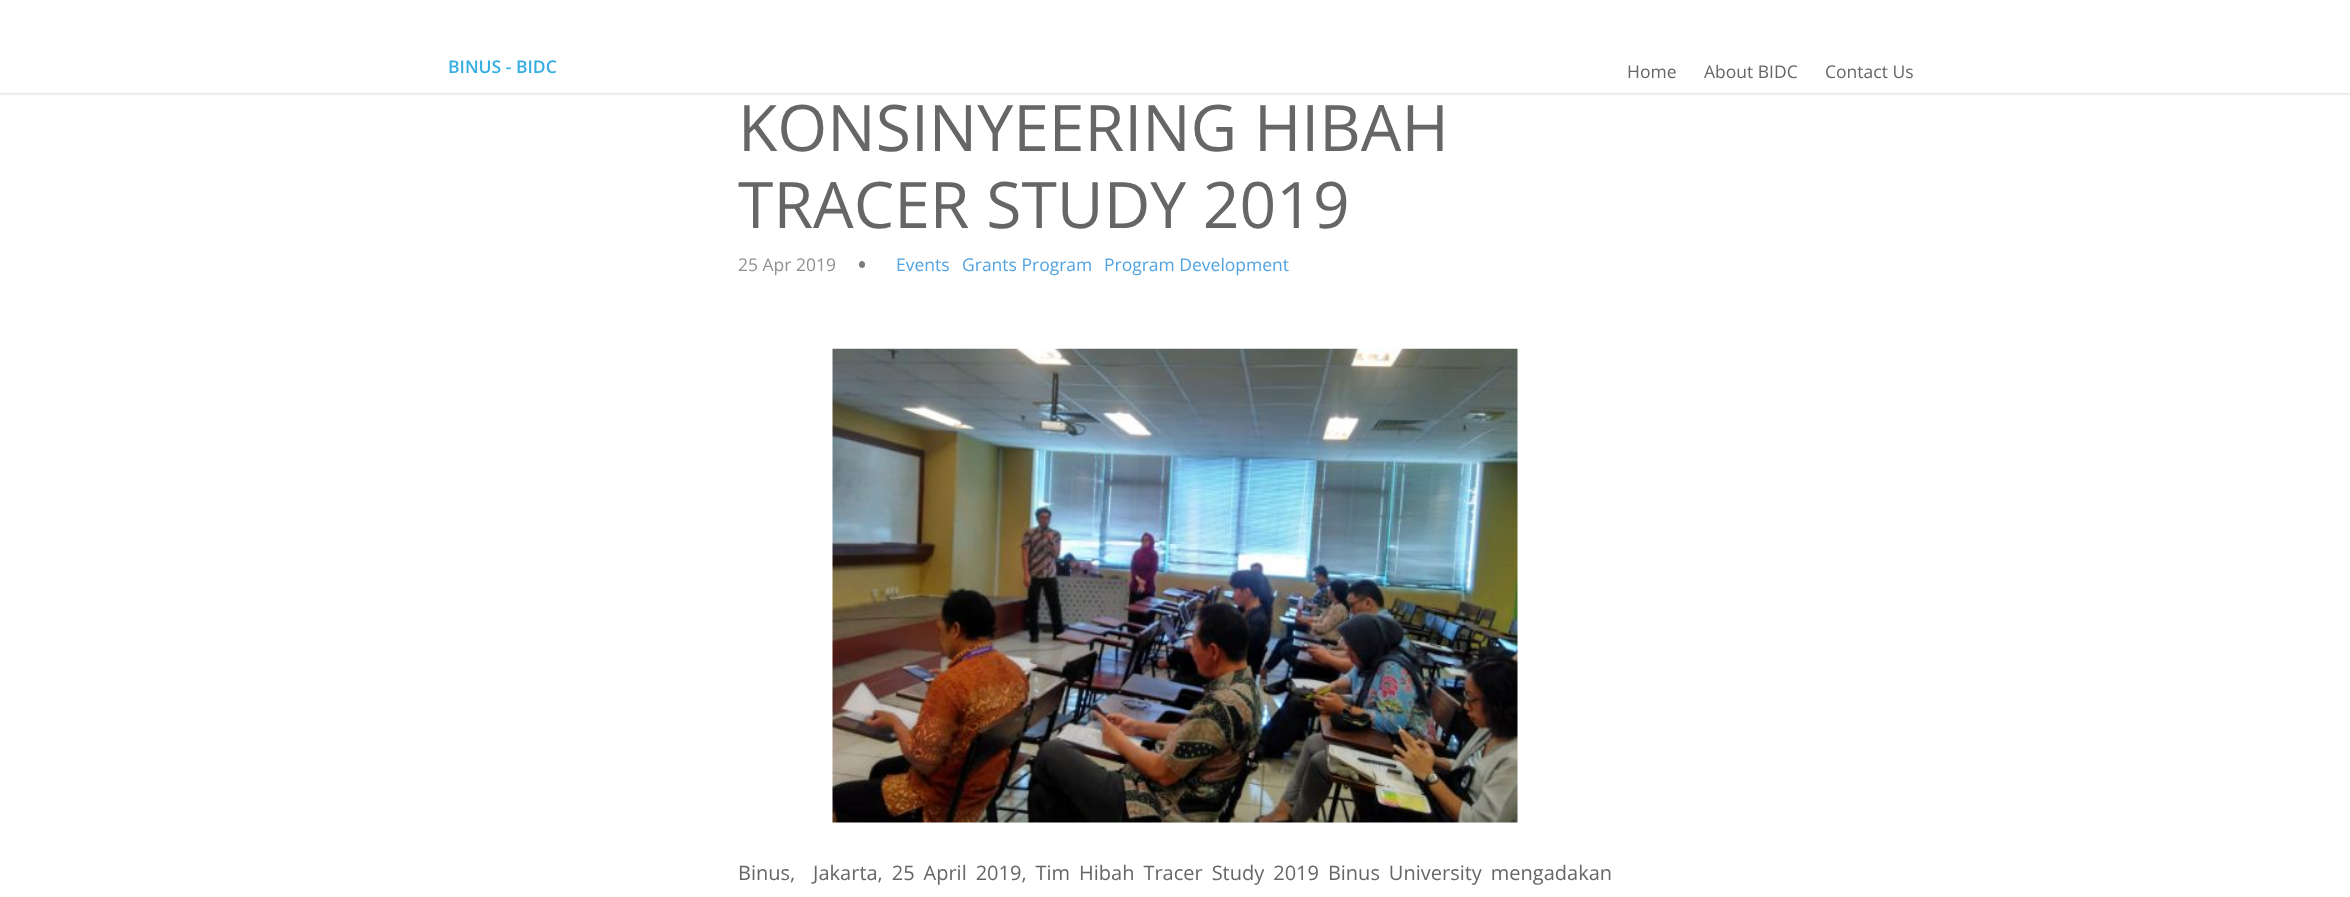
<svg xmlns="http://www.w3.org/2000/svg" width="2350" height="897">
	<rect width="100%" height="100%" fill="#FFFFFF" />
	<rect x="0" y="1" width="2350" height="93" fill="#D8D8D8" filter="blur(1px)" />
	<rect x="0" y="0" width="2350" height="93" fill="#FFFFFF" />
	<text x="448" y="73" font-family="Open Sans" font-size="17.5" font-weight="600" fill="#34AEE2">BINUS - BIDC</text>
	<g font-family="Open Sans" font-size="17.5" fill="#666666">
		<text x="1627" y="78">Home</text>
		<text x="1704" y="78">About BIDC</text>
		<text x="1825" y="78">Contact Us</text>
	</g>
	<g font-family="Open Sans" font-size="64.25" fill="#666666">
		<text x="738" y="151">KONSINYEERING HIBAH</text>
		<text x="738" y="228">TRACER STUDY 2019</text>
	</g>
	<text x="738" y="271" font-family="Open Sans" font-size="17.5" fill="#919191">25 Apr 2019</text>
	<rect x="859.5" y="261.5" width="5" height="6" rx="2.5" fill="#7C7C7C" stroke="#7C7C7C" />
	<g font-family="Open Sans" font-size="17.5" fill="#51A3E2">
		<text x="896" y="271">Events</text>
		<text x="962" y="271">Grants Program</text>
		<text x="1104" y="271">Program Development</text>
	</g>
	<image x="832" y="348" width="686" height="475" href="assets/img1.png" />
	<text x="738" y="880" word-spacing="3.75" font-family="Open Sans" font-size="20" fill="#666666" xml:space="preserve">Binus,  Jakarta, 25 April 2019, Tim Hibah Tracer Study 2019 Binus University mengadakan</text>
</svg>
